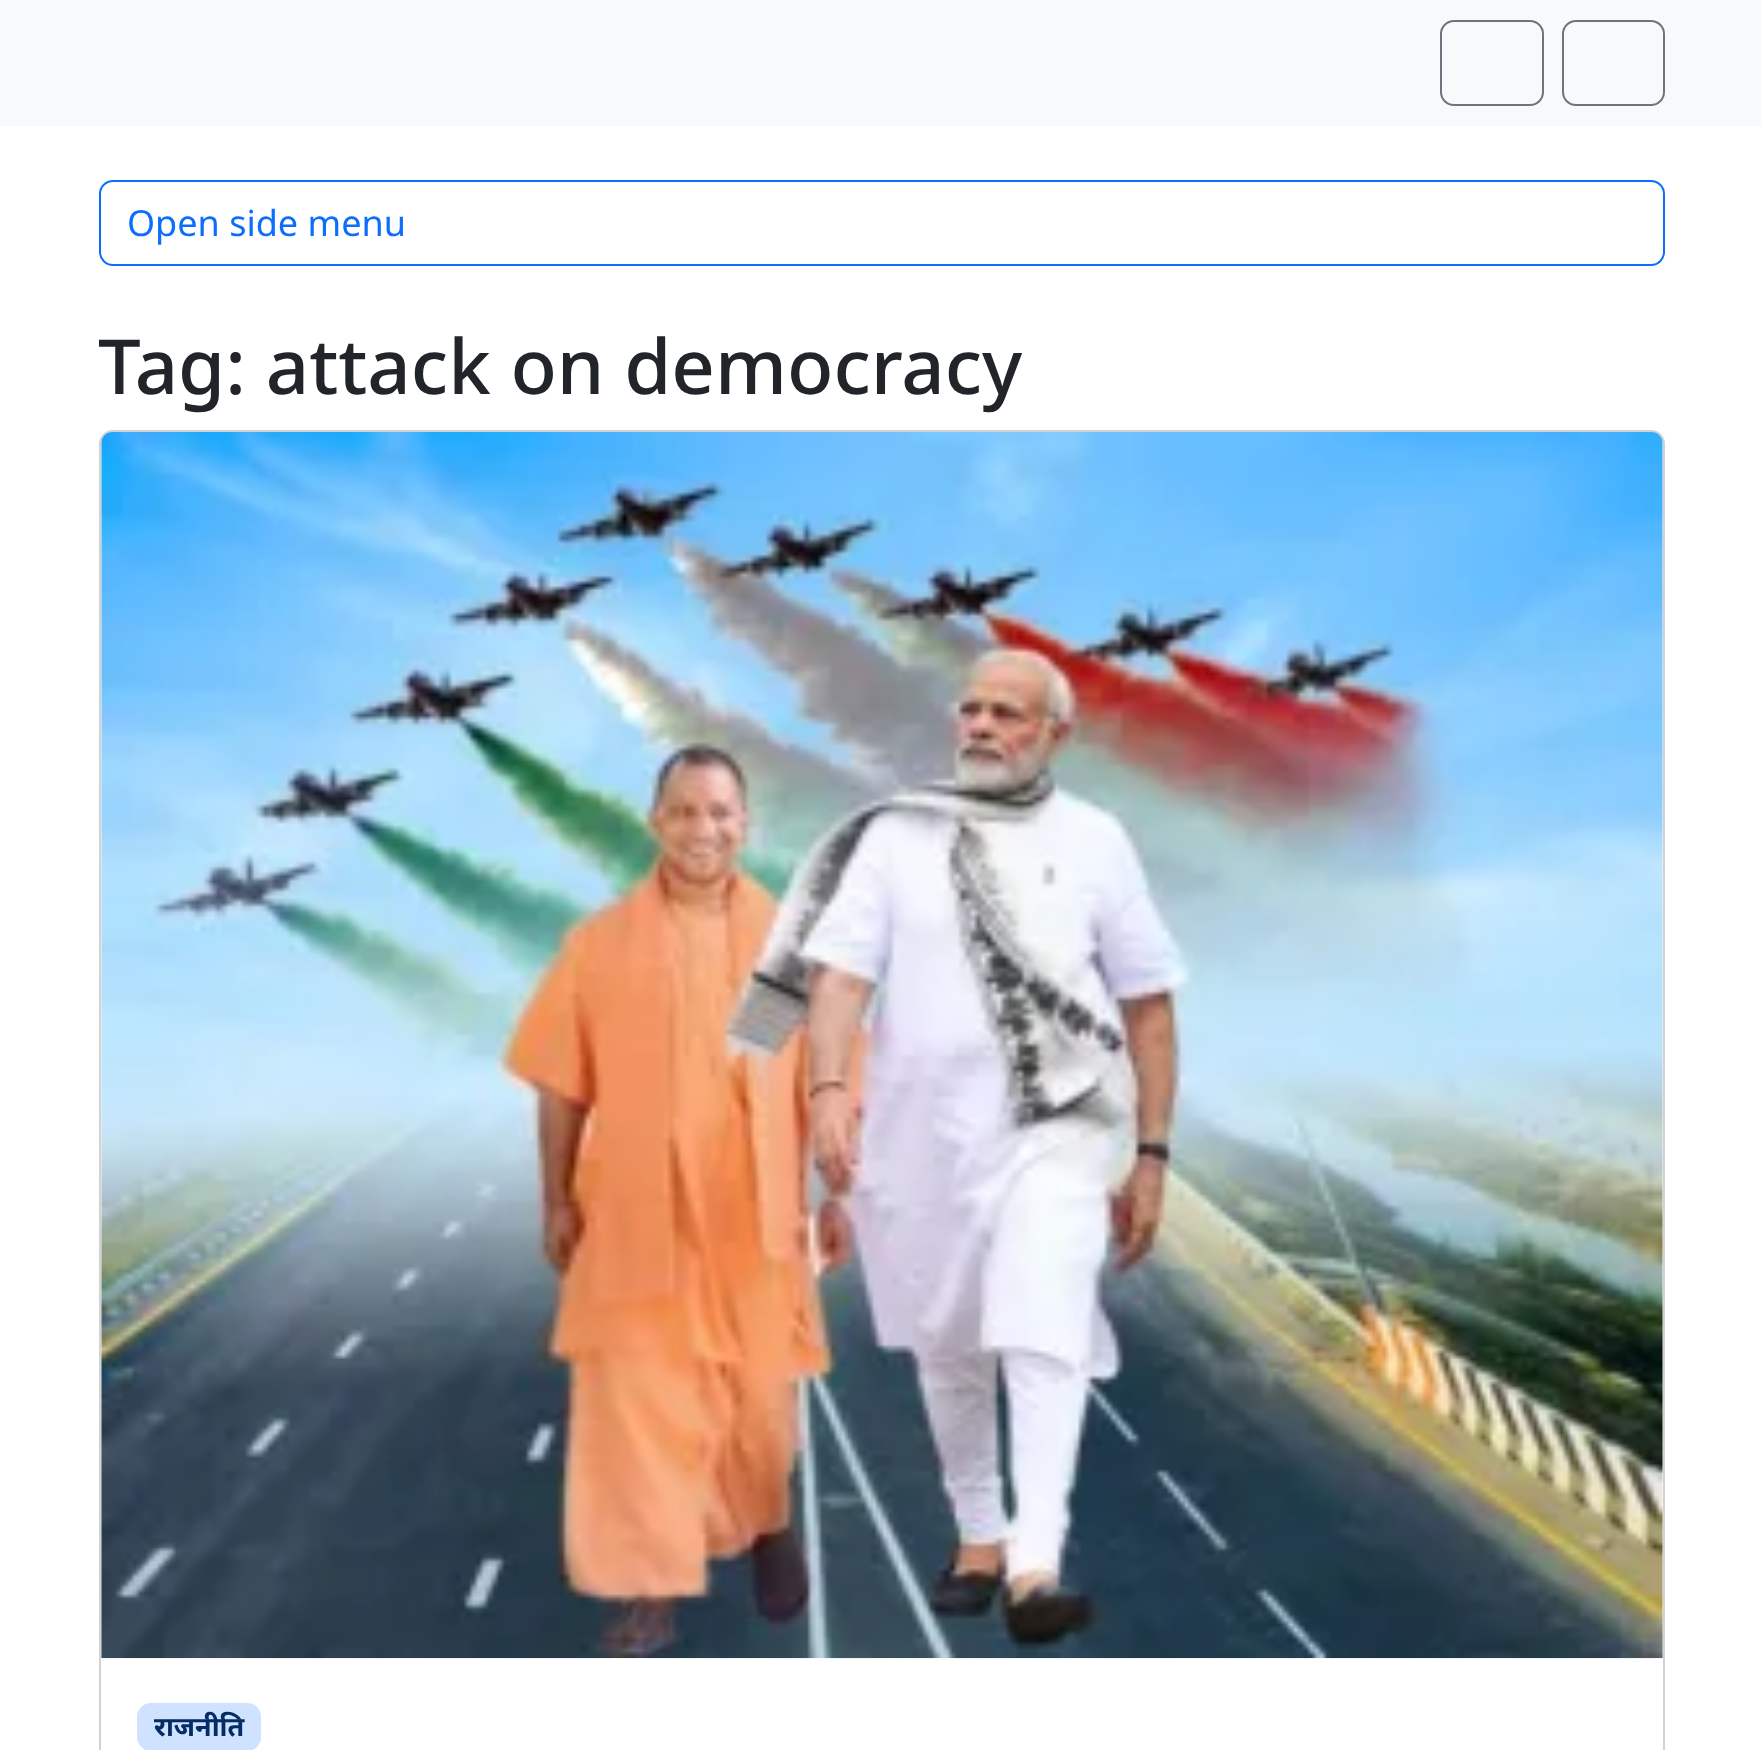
<svg xmlns="http://www.w3.org/2000/svg" width="1761" height="1750">
	<rect width="100%" height="100%" fill="#FFFFFF" />
	<rect x="0" y="0" width="1761" height="126" fill="#F8F9FA" />
	<rect x="1441" y="21" width="102" height="84" rx="13" fill="none" stroke="#6C757D" stroke-width="2" />
	<rect x="1563" y="21" width="101" height="84" rx="13" fill="none" stroke="#6C757D" stroke-width="2" />
	<rect x="100" y="181" width="1564" height="84" rx="13" fill="none" stroke="#0D6EFD" stroke-width="2" />
	<text x="127" y="236" font-family="Noto Sans" font-size="36" fill="#0D6EFD">Open side menu</text>
	<text x="98" y="394" font-family="Noto Sans" font-size="76" font-weight="500" fill="#212529">Tag: attack on democracy</text>
	<rect x="100" y="431" width="1564" height="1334" rx="13" fill="none" stroke="#D2D2D2" stroke-width="2" />
	<image x="101" y="432" width="1562" height="1227" href="assets/img1.png" />
	<rect x="137" y="1703" width="124" height="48" rx="14" fill="#CFE2FF" />
	<text x="154" y="1736" font-family="Noto Sans" font-size="27" font-weight="700" fill="#052C65">राजनीति</text>
</svg>
